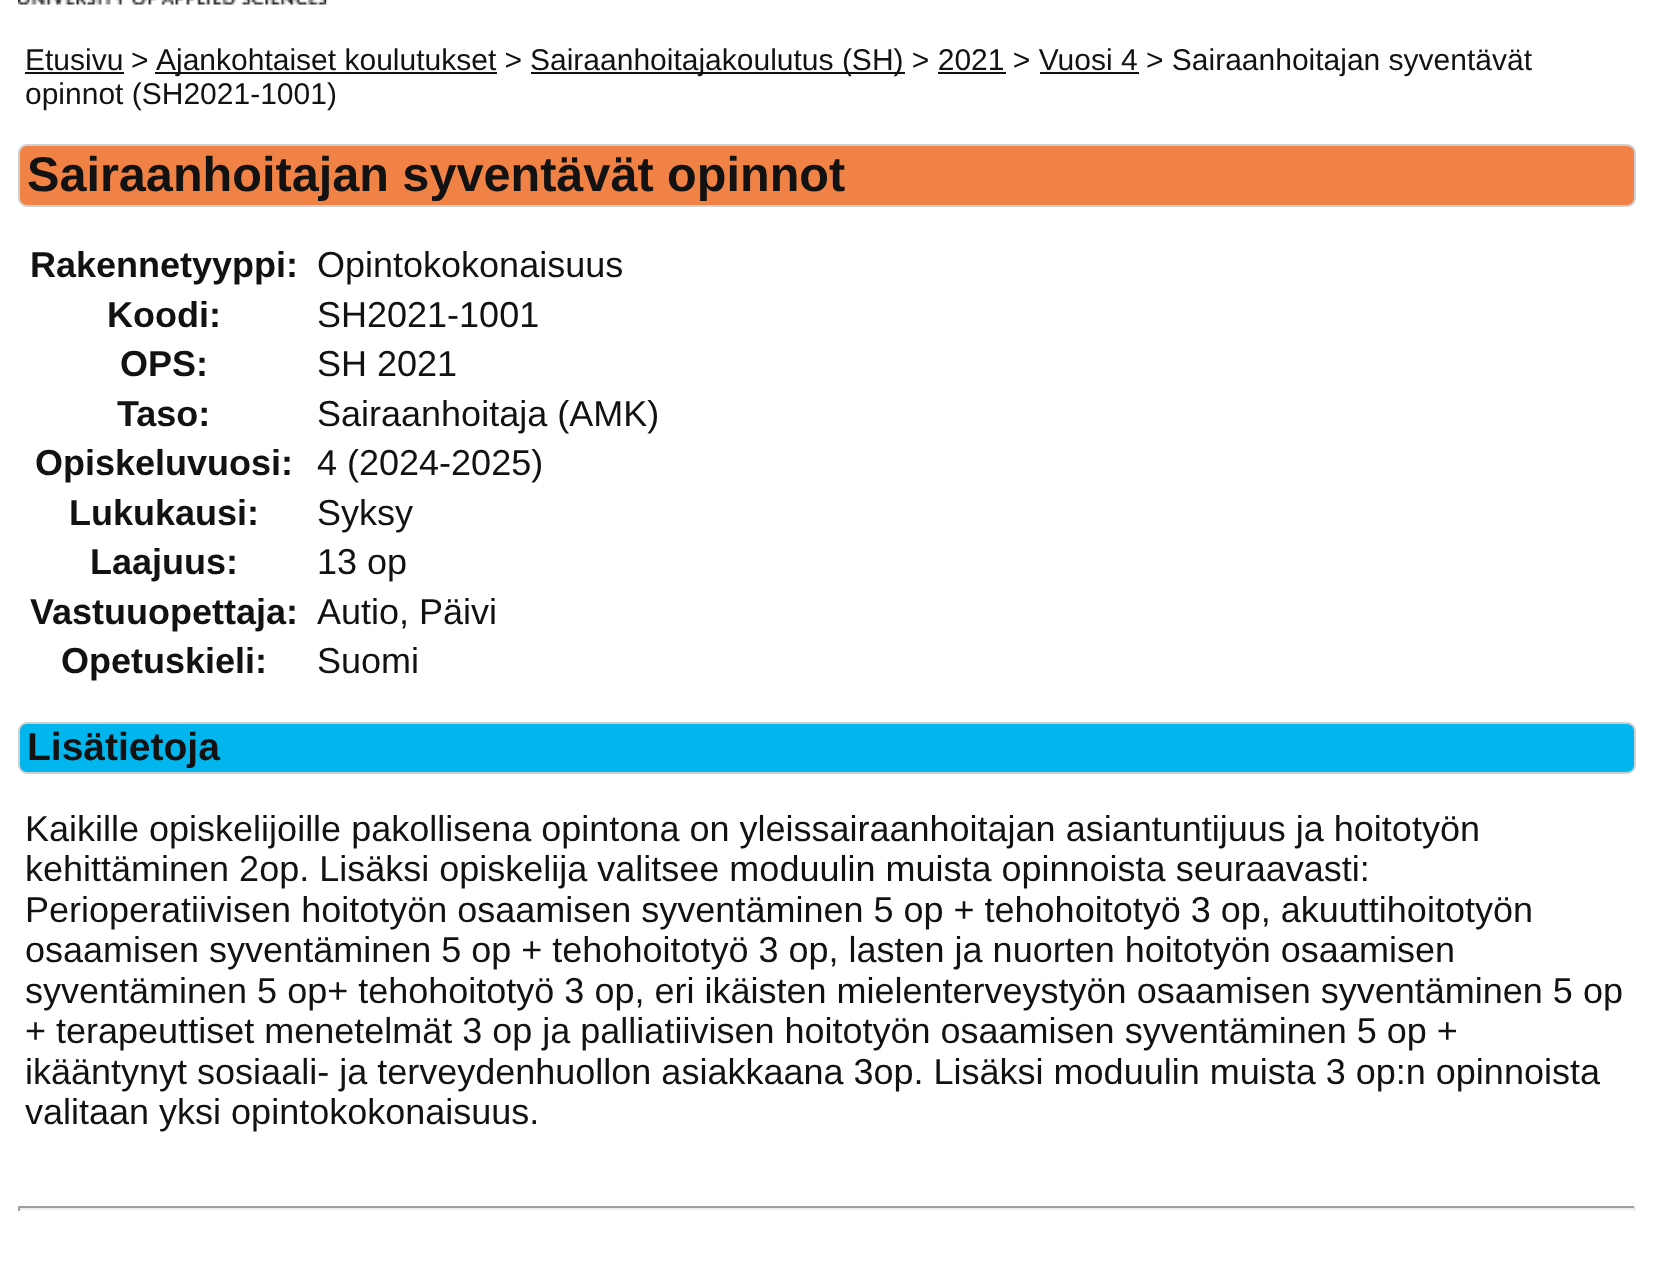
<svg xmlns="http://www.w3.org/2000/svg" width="1653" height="1267">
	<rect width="100%" height="100%" fill="#FFFFFF" />
	<image x="18" y="0" width="309" height="5" href="assets/img1.png" />
	<text x="25" y="70" font-family="Liberation Sans" font-size="30" fill="#121213">Etusivu</text>
	<rect x="25" y="72" width="99" height="2" fill="#121213" />
	<text x="131" y="70" font-family="Liberation Sans" font-size="30" fill="#121213">&gt;</text>
	<rect x="155" y="72" width="342" height="2" fill="#121213" />
	<text x="156" y="70" font-family="Liberation Sans" font-size="30" fill="#121213">Ajankohtaiset koulutukset &gt;</text>
	<rect x="531" y="72" width="374" height="2" fill="#121213" />
	<text x="530" y="70" font-family="Liberation Sans" font-size="30" fill="#121213">Sairaanhoitajakoulutus (SH) &gt; 2021 &gt; Vuosi 4 &gt; Sairaanhoitajan syventävät</text>
	<rect x="938" y="72" width="68" height="2" fill="#121213" />
	<rect x="1040" y="72" width="99" height="2" fill="#121213" />
	<text x="25" y="104" font-family="Liberation Sans" font-size="30" fill="#121213">opinnot (SH2021-1001)</text>
	<rect x="19" y="145" width="1616" height="61" rx="8" fill="#F08246" stroke="#CFD0D0" stroke-width="2" />
	<text x="27" y="191" font-family="Liberation Sans" font-size="48.6" font-weight="700" fill="#121213">Sairaanhoitajan syventävät opinnot</text>
	<text x="30" y="277" font-family="Liberation Sans" font-size="36" font-weight="700" fill="#121213">Rakennetyyppi:</text>
	<text x="317" y="277" font-family="Liberation Sans" font-size="36" fill="#121213">Opintokokonaisuus</text>
	<text x="107" y="327" font-family="Liberation Sans" font-size="36" font-weight="700" fill="#121213">Koodi:</text>
	<text x="317" y="327" font-family="Liberation Sans" font-size="36" fill="#121213">SH2021-1001</text>
	<text x="120" y="376" font-family="Liberation Sans" font-size="36" font-weight="700" fill="#121213">OPS:</text>
	<text x="317" y="376" font-family="Liberation Sans" font-size="36" fill="#121213">SH 2021</text>
	<text x="117" y="426" font-family="Liberation Sans" font-size="36" font-weight="700" fill="#121213">Taso:</text>
	<text x="317" y="426" font-family="Liberation Sans" font-size="36" fill="#121213">Sairaanhoitaja (AMK)</text>
	<text x="35" y="475" font-family="Liberation Sans" font-size="36" font-weight="700" fill="#121213">Opiskeluvuosi:</text>
	<text x="317" y="475" font-family="Liberation Sans" font-size="36" fill="#121213">4 (2024-2025)</text>
	<text x="69" y="525" font-family="Liberation Sans" font-size="36" font-weight="700" fill="#121213">Lukukausi:</text>
	<text x="317" y="525" font-family="Liberation Sans" font-size="36" fill="#121213">Syksy</text>
	<text x="90" y="574" font-family="Liberation Sans" font-size="36" font-weight="700" fill="#121213">Laajuus:</text>
	<text x="317" y="574" font-family="Liberation Sans" font-size="36" fill="#121213">13 op</text>
	<text x="30" y="624" font-family="Liberation Sans" font-size="36" font-weight="700" fill="#121213">Vastuuopettaja:</text>
	<text x="317" y="624" font-family="Liberation Sans" font-size="36" fill="#121213">Autio, Päivi</text>
	<text x="61" y="673" font-family="Liberation Sans" font-size="36" font-weight="700" fill="#121213">Opetuskieli:</text>
	<text x="317" y="673" font-family="Liberation Sans" font-size="36" fill="#121213">Suomi</text>
	<rect x="19" y="723" width="1616" height="50" rx="8" fill="#01B5ED" stroke="#CFD0D0" stroke-width="2" />
	<text x="27" y="760" font-family="Liberation Sans" font-size="39" font-weight="700" fill="#121213">Lisätietoja</text>
	<g font-family="Liberation Sans" font-size="36" fill="#121213">
		<text x="25" y="841">Kaikille opiskelijoille pakollisena opintona on yleissairaanhoitajan asiantuntijuus ja hoitotyön</text>
		<text x="25" y="881">kehittäminen 2op. Lisäksi opiskelija valitsee moduulin muista opinnoista seuraavasti:</text>
		<text x="25" y="922">Perioperatiivisen hoitotyön osaamisen syventäminen 5 op + tehohoitotyö 3 op, akuuttihoitotyön</text>
		<text x="25" y="962">osaamisen syventäminen 5 op + tehohoitotyö 3 op, lasten ja nuorten hoitotyön osaamisen</text>
		<text x="25" y="1003">syventäminen 5 op+ tehohoitotyö 3 op, eri ikäisten mielenterveystyön osaamisen syventäminen 5 op</text>
		<text x="25" y="1043">+ terapeuttiset menetelmät 3 op ja palliatiivisen hoitotyön osaamisen syventäminen 5 op +</text>
		<text x="25" y="1084">ikääntynyt sosiaali- ja terveydenhuollon asiakkaana 3op. Lisäksi moduulin muista 3 op:n opinnoista</text>
		<text x="25" y="1124">valitaan yksi opintokokonaisuus.</text>
	</g>
	<rect x="18" y="1206" width="1618" height="2" fill="#9F9F9F" />
	<rect x="1634" y="1206" width="2" height="5" fill="#EEEEEE" />
	<rect x="18" y="1208" width="1618" height="2" fill="#EEEEEE" />
	<rect x="18" y="1206" width="2" height="5" fill="#9F9F9F" />
</svg>
